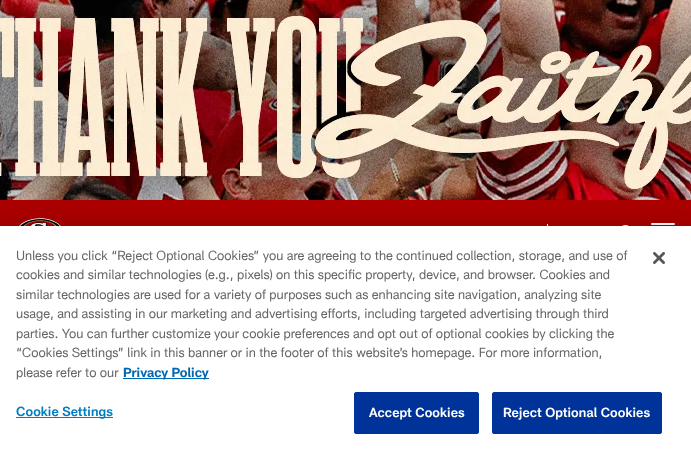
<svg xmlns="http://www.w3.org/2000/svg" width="691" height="453">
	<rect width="100%" height="100%" fill="#FFFFFF" />
	<image x="0" y="0" width="691" height="200" href="assets/img1.png" />
	<rect x="0" y="201" width="691" height="64" fill="#000000" fill-opacity="0.47" filter="blur(1px)" />
	<rect x="0" y="200" width="691" height="26" fill="#AA0000" />
	<image x="19" y="218" width="42" height="8" href="assets/img2.png" />
	<rect x="547" y="224" width="1" height="2" fill="#FFFFFF" />
	<image x="622" y="225" width="7" height="1" href="assets/img3.png" />
	<rect x="651" y="223" width="24" height="2" rx="1" fill="#FFFFFF" />
	<rect x="0" y="226" width="691" height="227" fill="#000000" fill-opacity="0.2" filter="blur(9px)" />
	<rect x="0" y="226" width="691" height="227" fill="#FFFFFF" />
	<g font-family="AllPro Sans" font-size="13" fill="#666666">
		<text x="16" y="260">Unless you click “Reject Optional Cookies” you are agreeing to the continued collection, storage, and use of</text>
		<text x="16" y="279">cookies and similar technologies (e.g., pixels) on this specific property, device, and browser. Cookies and</text>
		<text x="16" y="299">similar technologies are used for a variety of purposes such as enhancing site navigation, analyzing site</text>
		<text x="16" y="318">usage, and assisting in our marketing and advertising efforts, including targeted advertising through third</text>
		<text x="16" y="338">parties. You can further customize your cookie preferences and opt out of optional cookies by clicking the</text>
		<text x="16" y="357">“Cookies Settings” link in this banner or in the footer of this website’s homepage. For more information,</text>
		<text x="16" y="377">please refer to our</text>
	</g>
	<rect x="123" y="378" width="86" height="1" fill="#0067B1" />
	<text x="123" y="377" font-family="AllPro Sans" font-size="13" font-weight="700" fill="#0067B1">Privacy Policy</text>
	<rect x="16" y="417" width="97" height="1" fill="#007DC3" />
	<text x="16" y="416" font-family="AllPro Sans" font-size="13" font-weight="600" letter-spacing="0.1" fill="#007DC3">Cookie Settings</text>
	<rect x="354.5" y="392.5" width="124" height="41" rx="1.5" fill="#003399" stroke="#003399" />
	<text x="369" y="417" font-family="AllPro Sans" font-size="13" font-weight="600" letter-spacing="0.1" fill="#FFFFFF">Accept Cookies</text>
	<rect x="492.5" y="392.5" width="169" height="41" rx="1.5" fill="#003399" stroke="#003399" />
	<text x="503" y="417" font-family="AllPro Sans" font-size="13" font-weight="600" letter-spacing="0.1" fill="#FFFFFF">Reject Optional Cookies</text>
	<image x="653" y="252" width="12" height="12" href="assets/img4.png" />
</svg>
